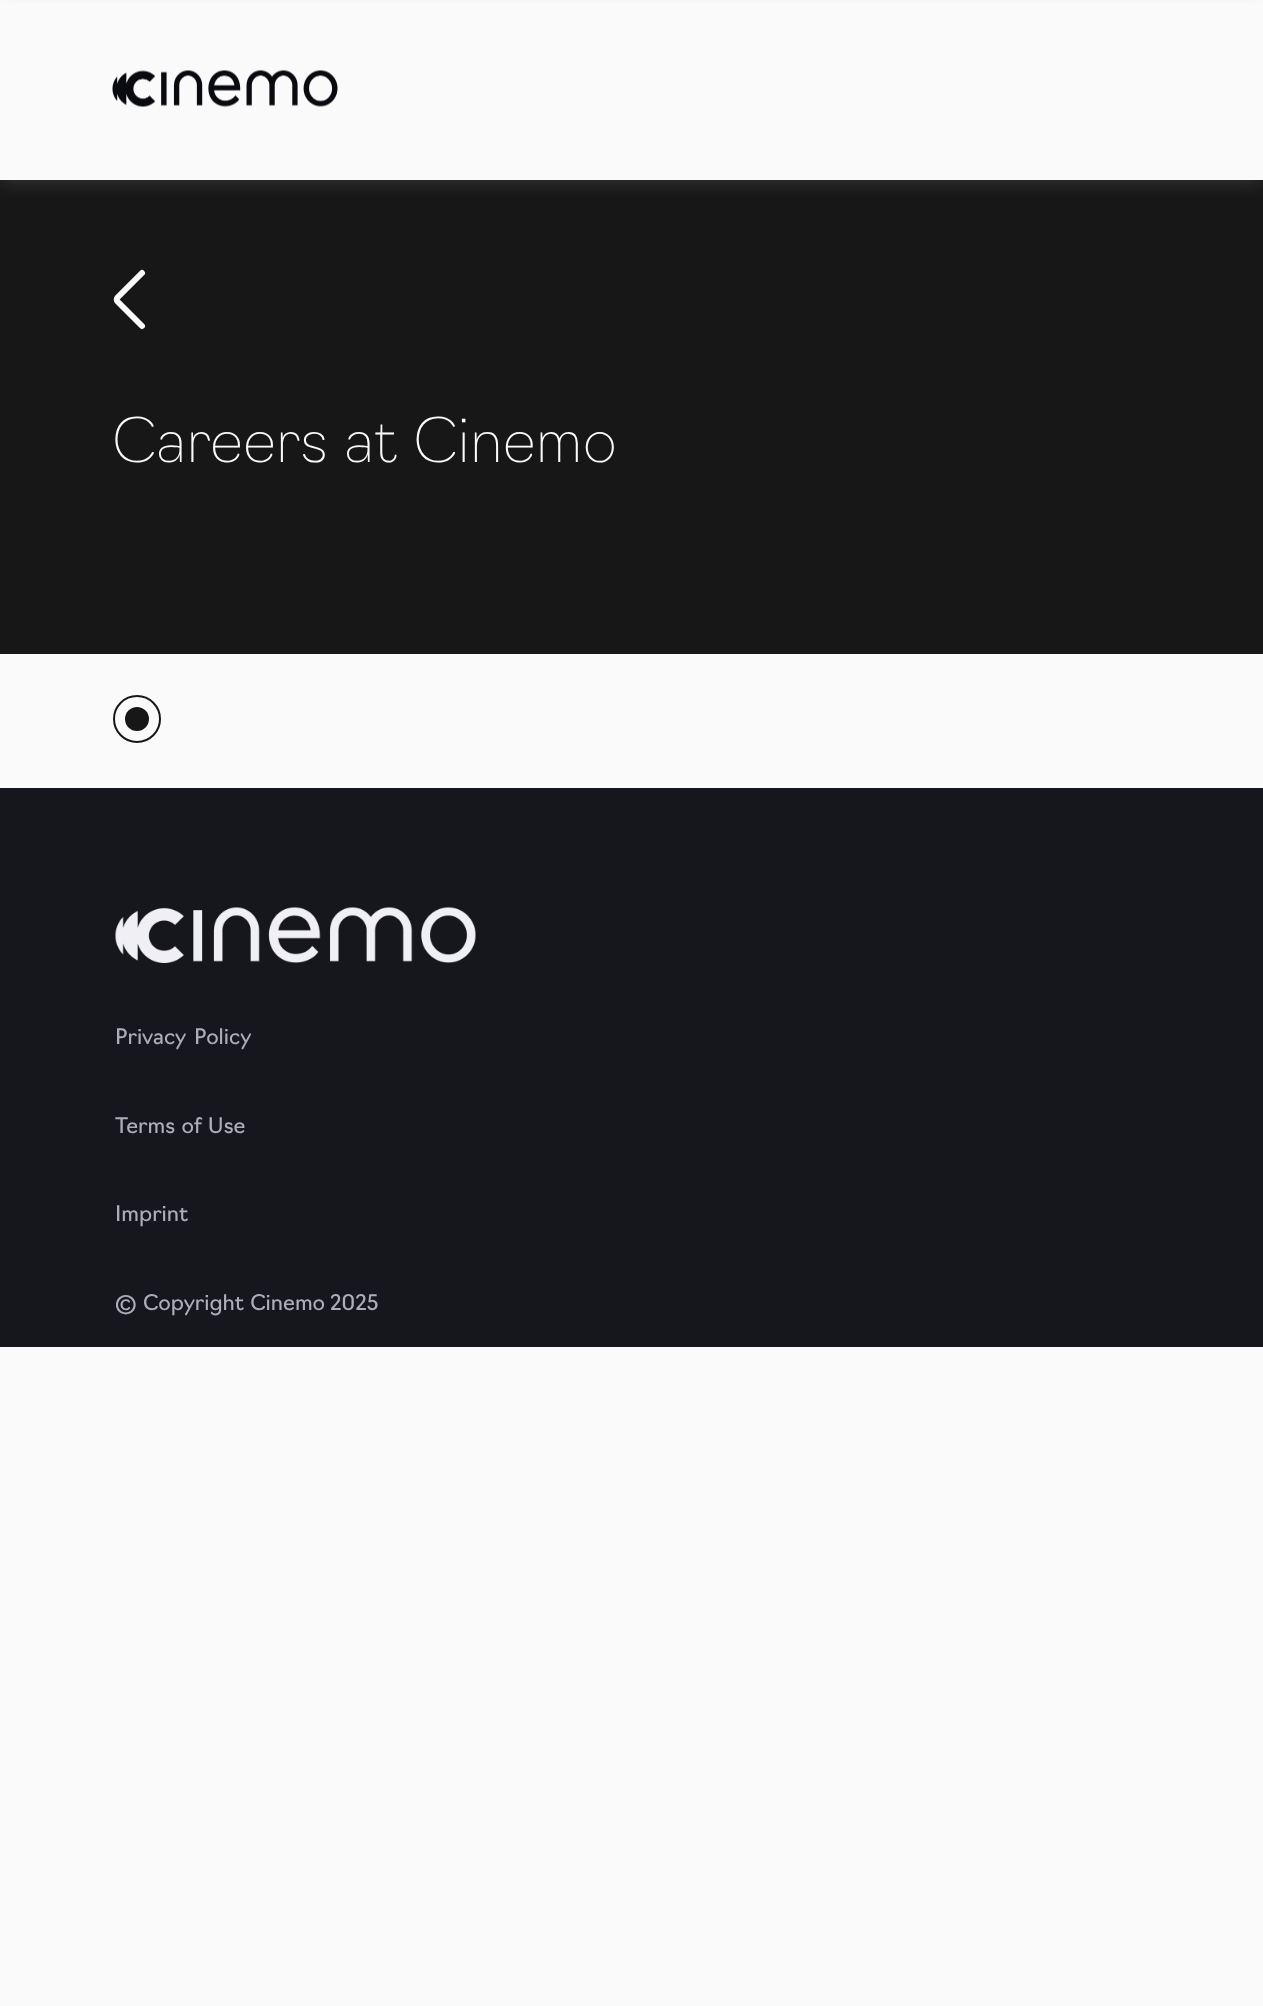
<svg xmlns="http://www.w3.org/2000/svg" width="1263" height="2006">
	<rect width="100%" height="100%" fill="#FAFAFA" />
	<rect x="0" y="180" width="1263" height="474" fill="#171717" />
	<rect x="0" y="3" width="1263" height="180" fill="#D9D9D9" fill-opacity="0.15" filter="blur(9px)" />
	<rect x="0" y="3" width="1263" height="177" fill="#FAFAFA" />
	<image x="112" y="70" width="226" height="37" href="assets/img1.png" />
	<path d="M142 273L117.5 297.5C116.5 298.5 116.5 300.5 117.5 301.5L142 326" fill="none" stroke="#FAFAFA" stroke-width="6" stroke-linecap="round" />
	<text x="112" y="462" font-family="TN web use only" font-size="60" font-weight="100" fill="#FAFAFA">Careers at Cinemo</text>
	<circle cx="137" cy="719" r="12" fill="#171717" />
	<circle cx="137" cy="719" r="23" fill="none" stroke="#171717" stroke-width="2" />
	<rect x="0" y="788" width="1263" height="559" fill="#16171C" />
	<image x="115" y="907" width="361" height="56" href="assets/img2.png" />
	<g font-family="TN web use only" font-size="21" fill="#ACADB6">
		<text x="115" y="1044" word-spacing="3">Privacy Policy</text>
		<text x="115" y="1133" word-spacing="1">Terms of Use</text>
		<text x="115" y="1221">Imprint</text>
		<text x="115" y="1310" word-spacing="1">© Copyright Cinemo</text>
		<text x="330" y="1310">2025</text>
	</g>
</svg>
